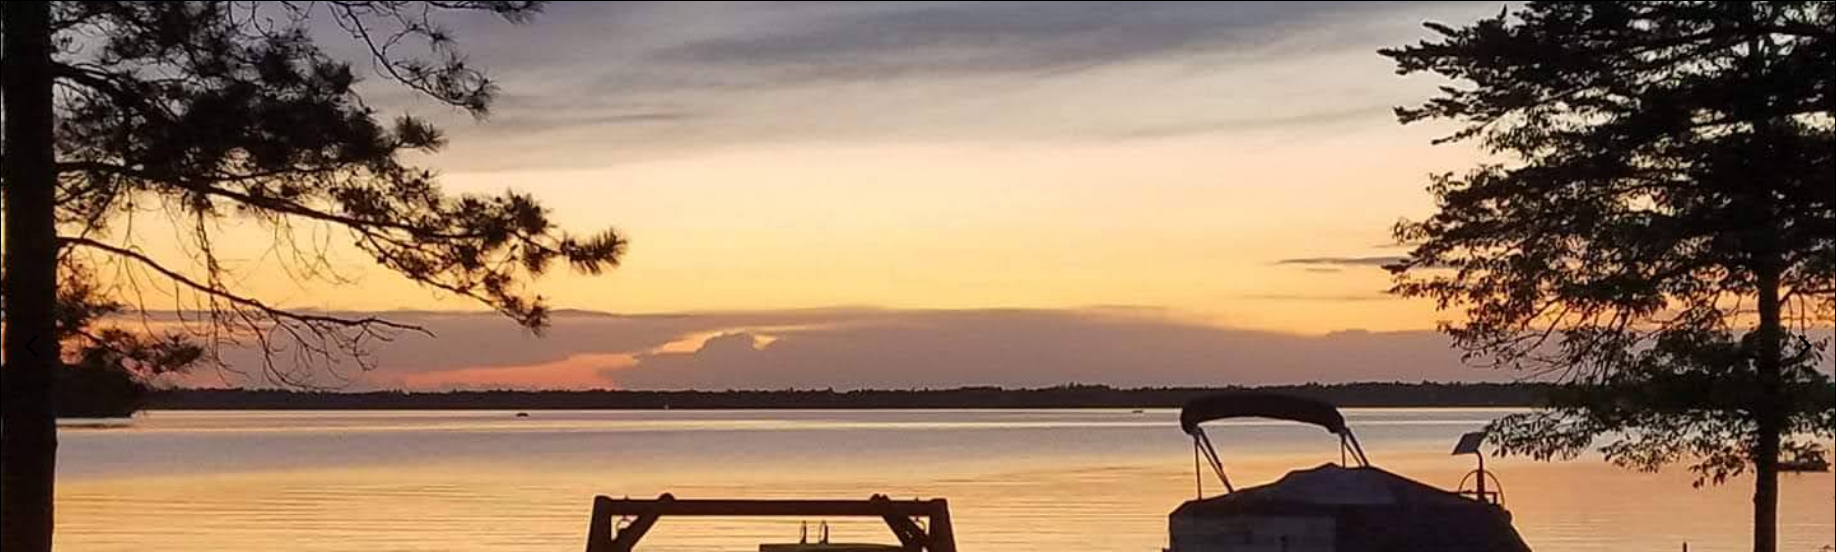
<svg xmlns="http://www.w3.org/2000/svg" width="1836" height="552">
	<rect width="100%" height="100%" fill="#FFFFFF" />
	<rect x="0.5" y="0.5" width="1835" height="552" fill="none" stroke="#000000" />
	<image x="1" y="1" width="1834" height="551" href="assets/img1.png" />
	<image x="25" y="335" width="13" height="22" href="assets/img2.png" />
	<image x="1798" y="335" width="14" height="22" href="assets/img3.png" />
</svg>
